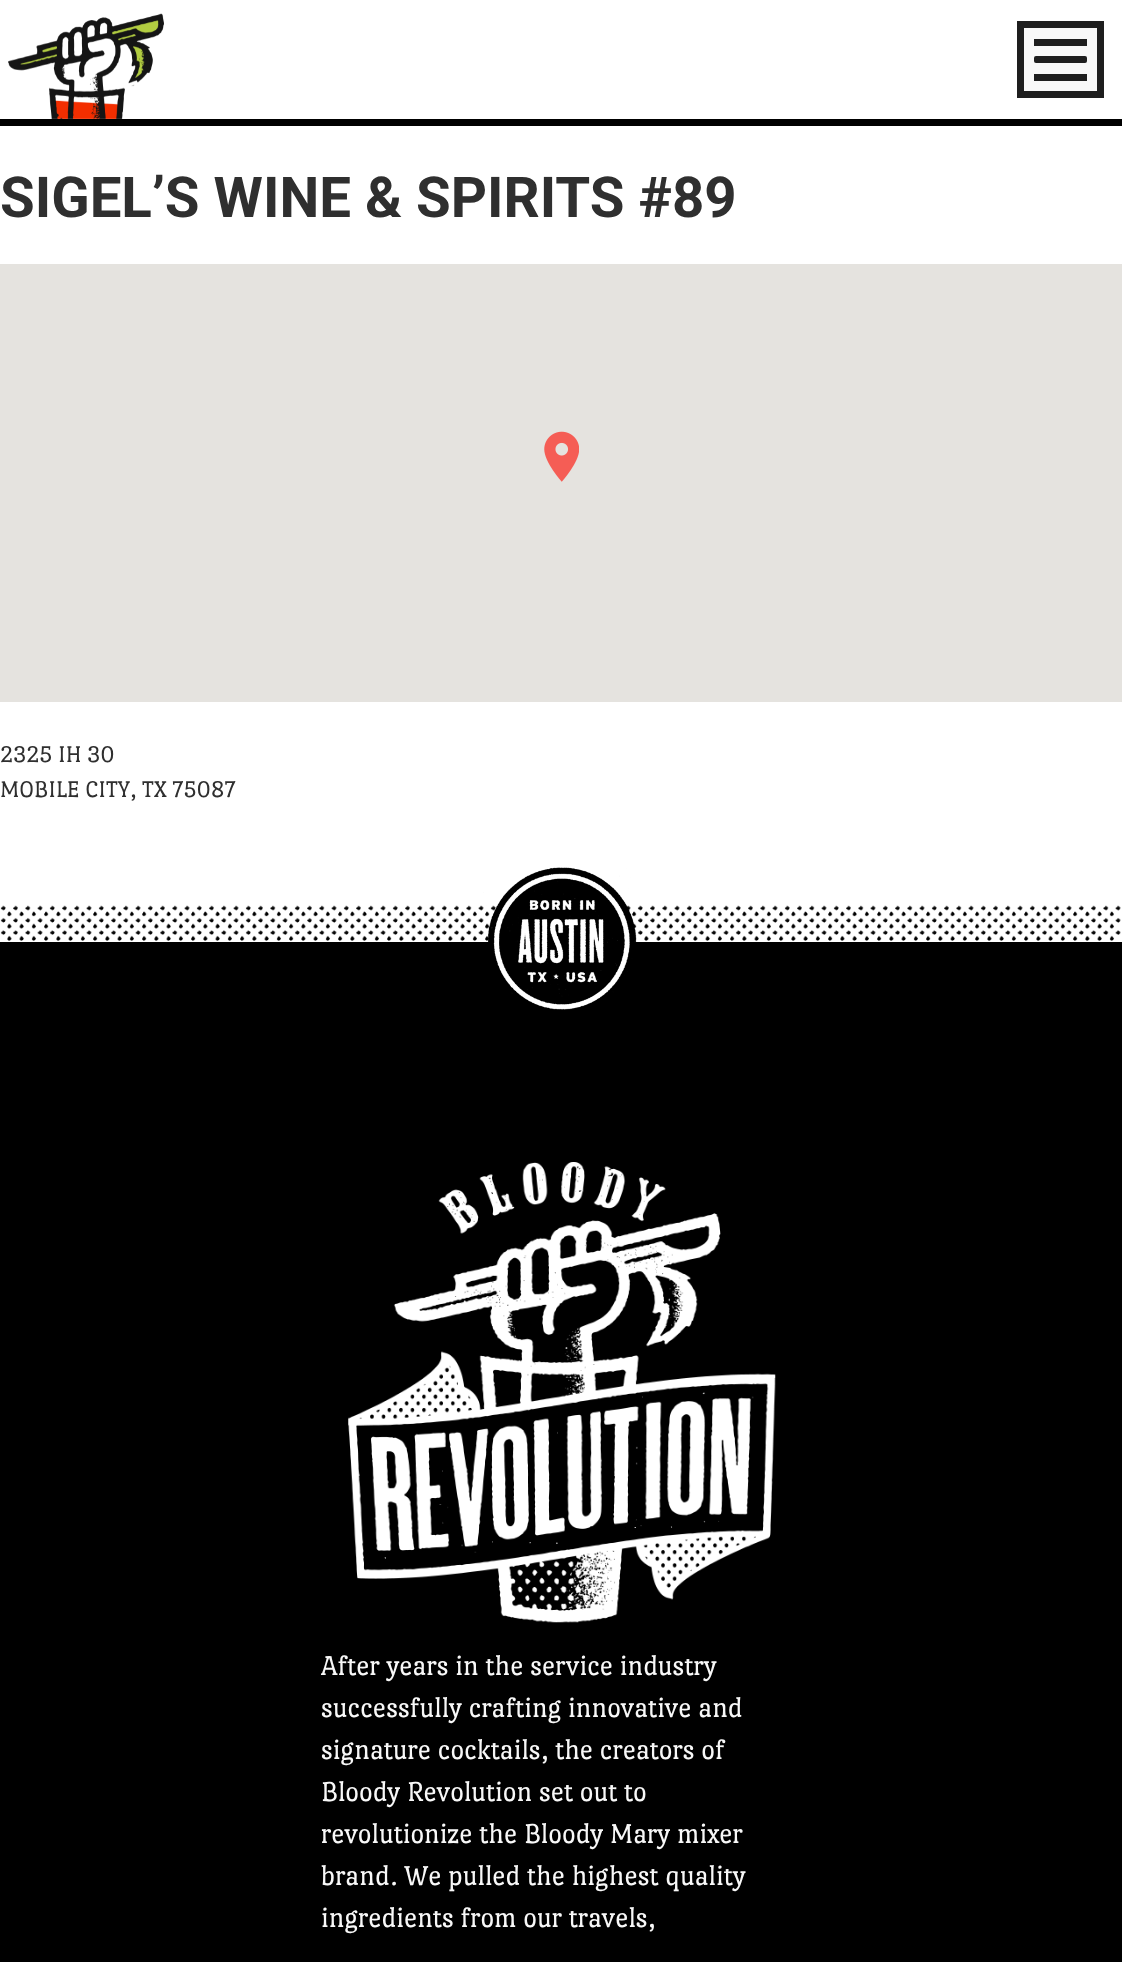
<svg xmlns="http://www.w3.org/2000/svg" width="1122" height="1962">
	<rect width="100%" height="100%" fill="#FFFFFF" />
	<rect x="0" y="119" width="1122" height="7" fill="#000000" />
	<image x="8" y="13" width="156" height="106" href="assets/img1.png" />
	<rect x="1020.5" y="24.5" width="80" height="70" fill="#F8F8F8" stroke="#1E1E1E" stroke-width="7" />
	<rect x="1034" y="56" width="53" height="7" rx="2" fill="#1E1E1E" />
	<rect x="1034" y="39" width="53" height="7" fill="#1E1E1E" />
	<rect x="1034" y="74" width="53" height="7" fill="#1E1E1E" />
	<text x="0" y="217" font-family="Roboto" font-size="56.4" font-weight="700" fill="#2F2F2F">SIGEL’S WINE &amp; SPIRITS #89</text>
	<rect x="0" y="264" width="1122" height="438" fill="#E5E3DF" />
	<image x="544" y="431" width="35" height="51" href="assets/img2.png" />
	<g font-family="Port Lligat Slab" font-size="24.5" fill="#2F2F2F">
		<text x="0" y="762">2325 IH 30</text>
		<text x="0" y="797">MOBILE CITY, TX 75087</text>
	</g>
	<image x="0" y="905" width="1121" height="37" href="assets/img3.png" />
	<rect x="0" y="942" width="1122" height="1020" fill="#000000" />
	<image x="483" y="867" width="154" height="143" href="assets/img4.png" />
	<image x="348" y="1162" width="428" height="461" href="assets/img5.png" />
	<g font-family="Port Lligat Slab" font-size="29.4" fill="#F8F8F8">
		<text x="321" y="1675">After years in the service industry</text>
		<text x="321" y="1717">successfully crafting innovative and</text>
		<text x="321" y="1759">signature cocktails, the creators of</text>
		<text x="321" y="1801">Bloody Revolution set out to</text>
		<text x="321" y="1843">revolutionize the Bloody Mary mixer</text>
		<text x="321" y="1885">brand. We pulled the highest quality</text>
		<text x="321" y="1927">ingredients from our travels,</text>
	</g>
</svg>
